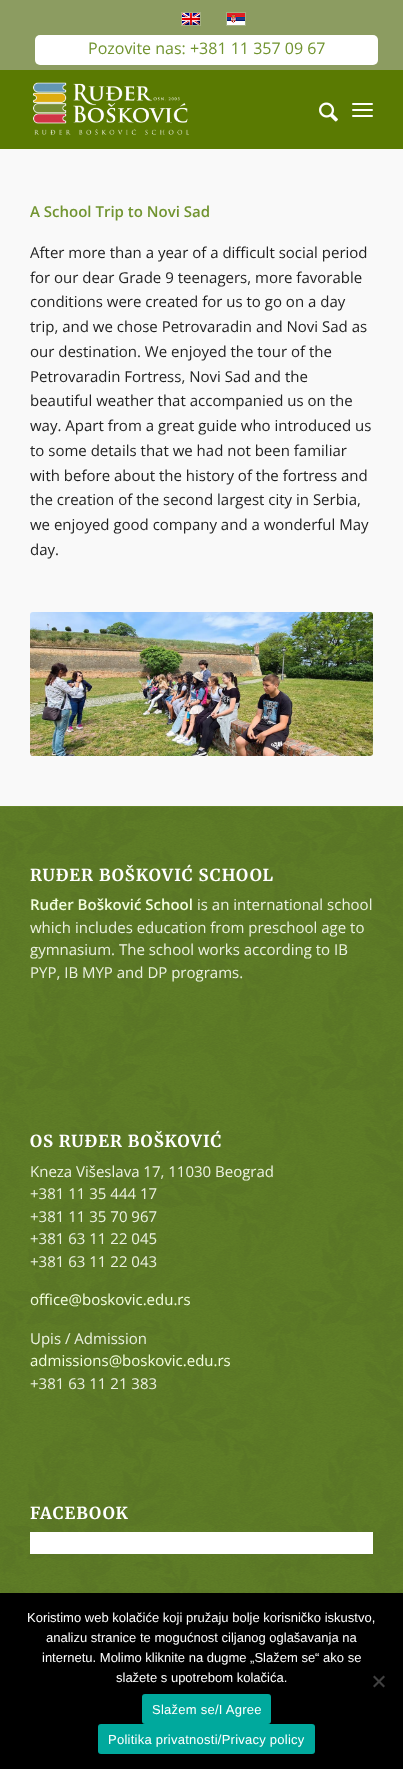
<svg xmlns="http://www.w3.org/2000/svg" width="403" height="1769">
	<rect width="100%" height="100%" fill="#F9F9F9" />
	<rect x="0" y="0" width="403" height="70" fill="#8C9C61" />
	<rect x="181.5" y="12.5" width="19" height="13" fill="none" stroke="#A3B081" />
	<image x="182" y="13" width="18" height="12" href="assets/img1.png" />
	<rect x="226.5" y="12.5" width="19" height="13" fill="none" stroke="#A3B081" />
	<image x="227" y="13" width="18" height="12" href="assets/img2.png" />
	<rect x="35" y="35" width="343" height="30" rx="5" fill="#FFFFFF" />
	<text x="88" y="54" font-family="Open Sans" font-size="16" fill="#719430">Pozovite nas: +381 11 357 09 67</text>
	<rect x="0" y="70" width="403" height="79" fill="#5A7A02" />
	<image x="33" y="82" width="156" height="53" href="assets/img3.png" />
	<image x="319" y="102" width="19" height="20" href="assets/img4.png" />
	<rect x="352" y="109" width="21" height="2" rx="1" fill="#FFFFFF" />
	<rect x="352" y="103" width="21" height="2" rx="1" fill="#FFFFFF" />
	<rect x="352" y="115" width="21" height="2" rx="1" fill="#FFFFFF" />
	<text x="30" y="217" font-family="Open Sans" font-size="15" font-weight="600" fill="#719430">A School Trip to Novi Sad</text>
	<g font-family="Open Sans" font-size="15" fill="#222222">
		<text x="30" y="258">After more than a year of a difficult social period</text>
		<text x="30" y="283">for our dear Grade 9 teenagers, more favorable</text>
		<text x="30" y="307">conditions were created for us to go on a day</text>
		<text x="30" y="332">trip, and we chose Petrovaradin and Novi Sad as</text>
		<text x="30" y="357">our destination. We enjoyed the tour of the</text>
		<text x="30" y="382">Petrovaradin Fortress, Novi Sad and the</text>
		<text x="30" y="406">beautiful weather that accompanied us on the</text>
		<text x="30" y="431">way. Apart from a great guide who introduced us</text>
		<text x="30" y="456">to some details that we had not been familiar</text>
		<text x="30" y="481">with before about the history of the fortress and</text>
		<text x="30" y="505">the creation of the second largest city in Serbia,</text>
		<text x="30" y="530">we enjoyed good company and a wonderful May</text>
		<text x="30" y="555">day.</text>
	</g>
	<image x="30" y="612" width="343" height="144" href="assets/img5.png" />
	<rect x="0" y="806" width="403" height="787" fill="#658529" />
	<image x="0" y="807" width="403" height="786" href="assets/img6.png" />
	<text x="30" y="881" font-family="Merriweather" font-size="16.5" font-weight="700" letter-spacing="1" fill="#FFFFFF">RUĐER BOŠKOVIĆ SCHOOL</text>
	<text x="30" y="910" font-family="Open Sans" font-size="15" font-weight="600" fill="#F3FFDE">Ruđer Bošković School</text>
	<g font-family="Open Sans" font-size="15" fill="#ECF2E1">
		<text x="197" y="910">is an international school</text>
		<text x="30" y="933">which includes education from preschool age to</text>
		<text x="30" y="955">gymnasium. The school works according to IB</text>
		<text x="30" y="978">PYP, IB MYP and DP programs.</text>
	</g>
	<text x="30" y="1147" font-family="Merriweather" font-size="16.5" font-weight="700" letter-spacing="1" fill="#FFFFFF">OS RUĐER BOŠKOVIĆ</text>
	<g font-family="Open Sans" font-size="15" fill="#ECF2E1">
		<text x="30" y="1177">Kneza Višeslava 17, 11030 Beograd</text>
		<text x="30" y="1199">+381 11 35 444 17</text>
		<text x="30" y="1222">+381 11 35 70 967</text>
		<text x="30" y="1244">+381 63 11 22 045</text>
		<text x="30" y="1267">+381 63 11 22 043</text>
	</g>
	<text x="30" y="1305" font-family="Open Sans" font-size="15" fill="#F3FFDE">office@boskovic.edu.rs</text>
	<text x="30" y="1344" font-family="Open Sans" font-size="15" fill="#ECF2E1">Upis / Admission</text>
	<text x="30" y="1366" font-family="Open Sans" font-size="15" fill="#F3FFDE">admissions@boskovic.edu.rs</text>
	<text x="30" y="1389" font-family="Open Sans" font-size="15" fill="#ECF2E1">+381 63 11 21 383</text>
	<text x="30" y="1519" font-family="Merriweather" font-size="16.5" font-weight="700" letter-spacing="1" fill="#FFFFFF">FACEBOOK</text>
	<rect x="30" y="1532" width="343" height="22" fill="#FFFFFF" />
	<rect x="0" y="1593" width="403" height="176" fill="#000000" />
	<g font-family="Liberation Sans" font-size="13" fill="#FFFFFF">
		<text x="27" y="1622">Koristimo web kolačiće koji pružaju bolje korisničko iskustvo,</text>
		<text x="46" y="1642">analizu stranice te mogućnost ciljanog oglašavanja na</text>
		<text x="42" y="1662">internetu. Molimo kliknite na dugme „Slažem se“ ako se</text>
		<text x="116" y="1682">slažete s upotrebom kolačića.</text>
	</g>
	<path d="M383.5 1675.5L385 1677L374.5 1687.5L373 1686Z" fill="#404040" />
	<path d="M373 1677L374.5 1675.5L385 1686L383.5 1687.5Z" fill="#404040" />
	<rect x="142" y="1694" width="129" height="30" rx="3" fill="#00A99D" />
	<text x="152" y="1714" font-family="Liberation Sans" font-size="13" letter-spacing="0.25" fill="#FFFFFF">Slažem se/I Agree</text>
	<rect x="98" y="1724" width="217" height="30" rx="3" fill="#00A99D" />
	<text x="108" y="1744" font-family="Liberation Sans" font-size="13" letter-spacing="0.25" fill="#FFFFFF">Politika privatnosti/Privacy policy</text>
</svg>
